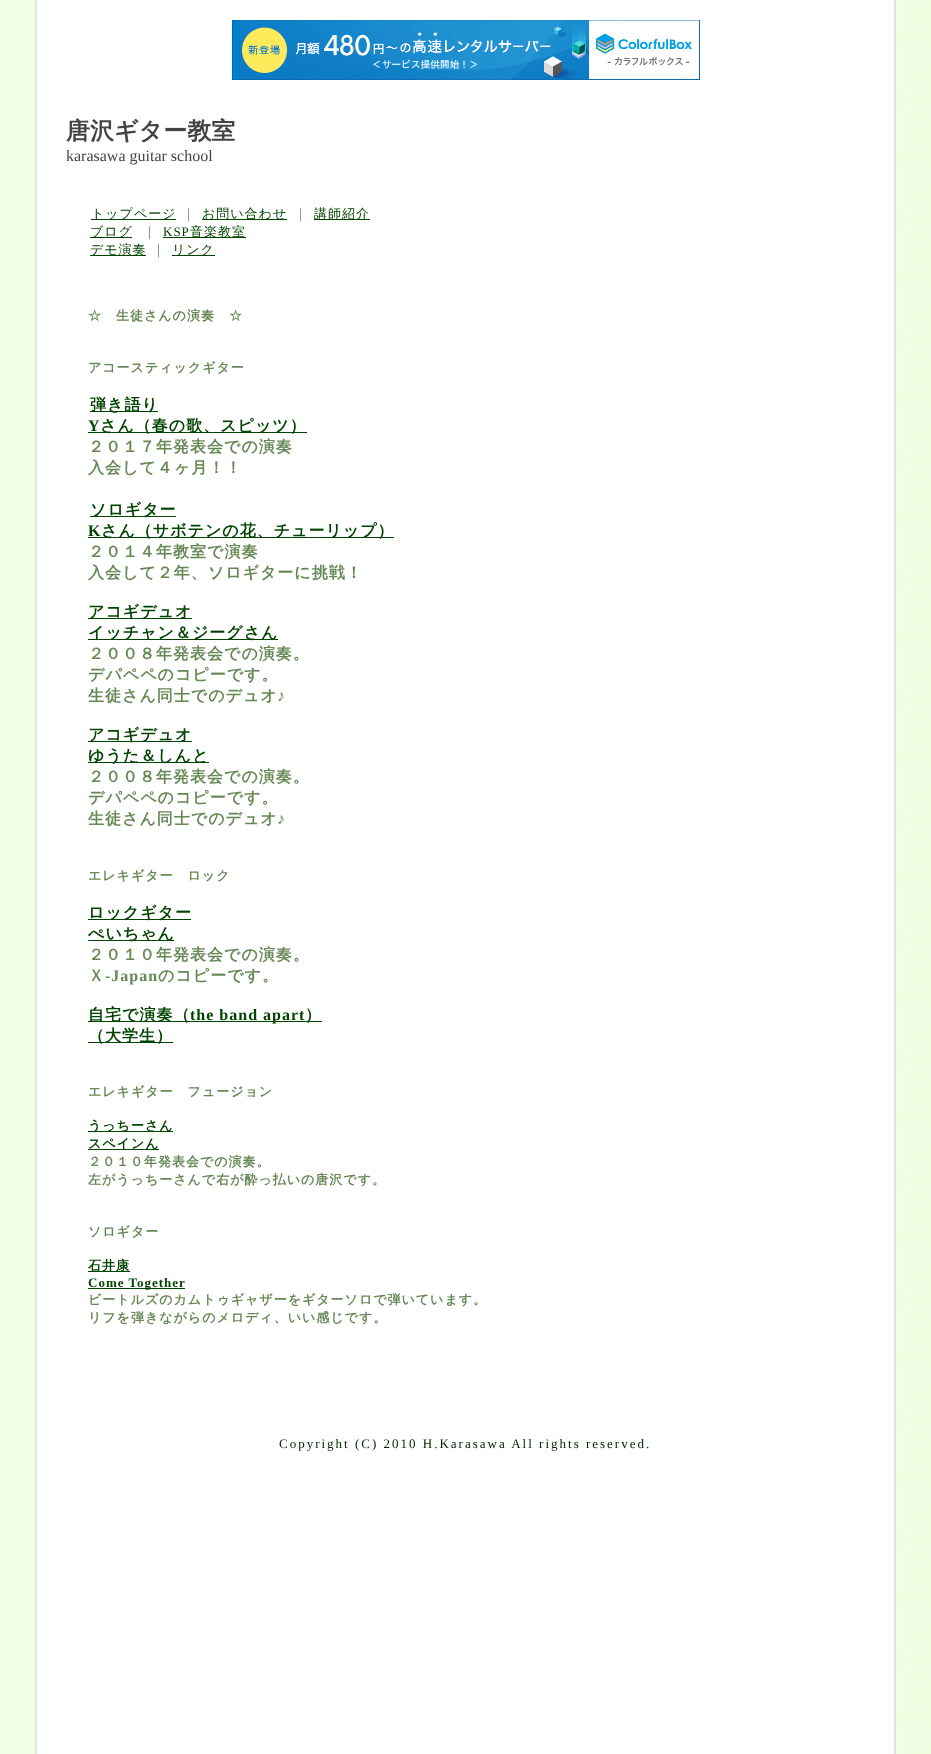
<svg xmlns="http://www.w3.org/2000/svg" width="931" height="1754">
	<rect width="100%" height="100%" fill="#FFFFFF" />
	<image x="0" y="0" width="931" height="1754" href="assets/img1.png" />
	<image x="232" y="20" width="468" height="60" href="assets/img2.png" />
	<text x="66" y="139" font-family="WenQuanYi Zen Hei" font-size="24" font-weight="700" fill="#444444">唐沢ギター教室</text>
	<text x="66" y="161" font-family="Liberation Serif" font-size="16" fill="#444444">karasawa guitar school</text>
	<rect x="91" y="219" width="85" height="1" fill="#004400" />
	<text x="91" y="218" font-family="WenQuanYi Zen Hei" font-size="13" font-weight="500" letter-spacing="1" fill="#004400">トップページ</text>
	<text x="182" y="218" font-family="WenQuanYi Zen Hei" font-size="13" font-weight="500" letter-spacing="1" fill="#668855">｜</text>
	<rect x="202" y="219" width="85" height="1" fill="#004400" />
	<text x="202" y="218" font-family="WenQuanYi Zen Hei" font-size="13" font-weight="500" letter-spacing="1" fill="#004400">お問い合わせ</text>
	<text x="294" y="218" font-family="WenQuanYi Zen Hei" font-size="13" font-weight="500" letter-spacing="1" fill="#668855">｜</text>
	<rect x="314" y="219" width="56" height="1" fill="#004400" />
	<text x="314" y="218" font-family="WenQuanYi Zen Hei" font-size="13" font-weight="500" letter-spacing="1" fill="#004400">講師紹介</text>
	<rect x="90" y="237" width="42" height="1" fill="#004400" />
	<text x="90" y="236" font-family="WenQuanYi Zen Hei" font-size="13" font-weight="500" letter-spacing="1" fill="#004400">ブログ</text>
	<text x="143" y="236" font-family="WenQuanYi Zen Hei" font-size="13" font-weight="500" letter-spacing="1" fill="#668855">｜</text>
	<text x="163" y="236" font-family="Liberation Serif" font-size="13" letter-spacing="1" fill="#004400">KSP</text>
	<rect x="163" y="237" width="83" height="1" fill="#004400" />
	<text x="190" y="236" font-family="WenQuanYi Zen Hei" font-size="13" font-weight="500" letter-spacing="1" fill="#004400">音楽教室</text>
	<rect x="90" y="255" width="56" height="1" fill="#004400" />
	<text x="90" y="254" font-family="WenQuanYi Zen Hei" font-size="13" font-weight="500" letter-spacing="1" fill="#004400">デモ演奏</text>
	<text x="152" y="254" font-family="WenQuanYi Zen Hei" font-size="13" font-weight="500" letter-spacing="1" fill="#668855">｜</text>
	<rect x="172" y="255" width="43" height="1" fill="#004400" />
	<text x="172" y="254" font-family="WenQuanYi Zen Hei" font-size="13" font-weight="500" letter-spacing="1" fill="#004400">リンク</text>
	<g font-family="WenQuanYi Zen Hei" font-size="13" font-weight="700" letter-spacing="1" fill="#668855">
		<text x="88" y="320">☆　生徒さんの演奏　☆</text>
		<text x="88" y="372">アコースティックギター</text>
	</g>
	<rect x="90" y="411" width="68" height="1" fill="#004400" />
	<text x="90" y="410" font-family="WenQuanYi Zen Hei" font-size="16" font-weight="700" letter-spacing="1" fill="#004400">弾き語り</text>
	<text x="88" y="431" font-family="Liberation Serif" font-size="16" font-weight="700" letter-spacing="1" fill="#004400">Y</text>
	<rect x="88" y="432" width="219" height="1" fill="#004400" />
	<text x="100" y="431" font-family="WenQuanYi Zen Hei" font-size="16" font-weight="700" letter-spacing="1" fill="#004400">さん（春の歌、スピッツ）</text>
	<g font-family="WenQuanYi Zen Hei" font-size="16" font-weight="700" letter-spacing="1" fill="#668855">
		<text x="88" y="452">２０１７年発表会での演奏</text>
		<text x="88" y="473">入会して４ヶ月！！</text>
	</g>
	<rect x="90" y="516" width="86" height="1" fill="#004400" />
	<text x="90" y="515" font-family="WenQuanYi Zen Hei" font-size="16" font-weight="700" letter-spacing="1" fill="#004400">ソロギター</text>
	<text x="88" y="536" font-family="Liberation Serif" font-size="16" font-weight="700" letter-spacing="1" fill="#004400">K</text>
	<rect x="88" y="537" width="306" height="1" fill="#004400" />
	<text x="101" y="536" font-family="WenQuanYi Zen Hei" font-size="16" font-weight="700" letter-spacing="1" fill="#004400">さん（サボテンの花、チューリップ）</text>
	<g font-family="WenQuanYi Zen Hei" font-size="16" font-weight="700" letter-spacing="1" fill="#668855">
		<text x="88" y="557">２０１４年教室で演奏</text>
		<text x="88" y="578">入会して２年、ソロギターに挑戦！</text>
	</g>
	<rect x="88" y="618" width="104" height="1" fill="#004400" />
	<text x="88" y="617" font-family="WenQuanYi Zen Hei" font-size="16" font-weight="700" letter-spacing="1" fill="#004400">アコギデュオ</text>
	<rect x="88" y="639" width="190" height="1" fill="#004400" />
	<text x="88" y="638" font-family="WenQuanYi Zen Hei" font-size="16" font-weight="700" letter-spacing="1" fill="#004400">イッチャン＆ジーグさん</text>
	<g font-family="WenQuanYi Zen Hei" font-size="16" font-weight="700" letter-spacing="1" fill="#668855">
		<text x="88" y="659">２００８年発表会での演奏。</text>
		<text x="88" y="680">デパペペのコピーです。</text>
		<text x="88" y="701">生徒さん同士でのデュオ</text>
	</g>
	<text x="277" y="701" font-family="Liberation Serif" font-size="16" font-weight="700" letter-spacing="1" fill="#668855">♪</text>
	<rect x="88" y="741" width="104" height="1" fill="#004400" />
	<text x="88" y="740" font-family="WenQuanYi Zen Hei" font-size="16" font-weight="700" letter-spacing="1" fill="#004400">アコギデュオ</text>
	<rect x="88" y="762" width="121" height="1" fill="#004400" />
	<text x="88" y="761" font-family="WenQuanYi Zen Hei" font-size="16" font-weight="700" letter-spacing="1" fill="#004400">ゆうた＆しんと</text>
	<g font-family="WenQuanYi Zen Hei" font-size="16" font-weight="700" letter-spacing="1" fill="#668855">
		<text x="88" y="782">２００８年発表会での演奏。</text>
		<text x="88" y="803">デパペペのコピーです。</text>
		<text x="88" y="824">生徒さん同士でのデュオ</text>
	</g>
	<text x="277" y="824" font-family="Liberation Serif" font-size="16" font-weight="700" letter-spacing="1" fill="#668855">♪</text>
	<text x="88" y="880" font-family="WenQuanYi Zen Hei" font-size="13" font-weight="700" letter-spacing="1" fill="#668855">エレキギター　ロック</text>
	<rect x="88" y="919" width="103" height="1" fill="#004400" />
	<text x="88" y="918" font-family="WenQuanYi Zen Hei" font-size="16" font-weight="700" letter-spacing="1" fill="#004400">ロックギター</text>
	<rect x="88" y="940" width="86" height="1" fill="#004400" />
	<text x="88" y="939" font-family="WenQuanYi Zen Hei" font-size="16" font-weight="700" letter-spacing="1" fill="#004400">ぺいちゃん</text>
	<g font-family="WenQuanYi Zen Hei" font-size="16" font-weight="700" letter-spacing="1" fill="#668855">
		<text x="88" y="960">２０１０年発表会での演奏。</text>
		<text x="88" y="981">Ｘ</text>
	</g>
	<text x="105" y="981" font-family="Liberation Serif" font-size="16" font-weight="700" letter-spacing="1" fill="#668855">-Japan</text>
	<text x="158" y="981" font-family="WenQuanYi Zen Hei" font-size="16" font-weight="700" letter-spacing="1" fill="#668855">のコピーです。</text>
	<rect x="88" y="1021" width="234" height="1" fill="#004400" />
	<text x="88" y="1020" font-family="WenQuanYi Zen Hei" font-size="16" font-weight="700" letter-spacing="1" fill="#004400">自宅で演奏（</text>
	<text x="190" y="1020" font-family="Liberation Serif" font-size="16" font-weight="700" letter-spacing="1" fill="#004400">the band apart</text>
	<text x="305" y="1020" font-family="WenQuanYi Zen Hei" font-size="16" font-weight="700" letter-spacing="1" fill="#004400">）</text>
	<rect x="88" y="1042" width="85" height="1" fill="#004400" />
	<text x="88" y="1041" font-family="WenQuanYi Zen Hei" font-size="16" font-weight="700" letter-spacing="1" fill="#004400">（大学生）</text>
	<text x="88" y="1096" font-family="WenQuanYi Zen Hei" font-size="13" font-weight="700" letter-spacing="1" fill="#668855">エレキギター　フュージョン</text>
	<rect x="88" y="1131" width="85" height="1" fill="#004400" />
	<text x="88" y="1130" font-family="WenQuanYi Zen Hei" font-size="13" font-weight="700" letter-spacing="1" fill="#004400">うっちーさん</text>
	<rect x="88" y="1149" width="71" height="1" fill="#004400" />
	<text x="88" y="1148" font-family="WenQuanYi Zen Hei" font-size="13" font-weight="700" letter-spacing="1" fill="#004400">スペインん</text>
	<g font-family="WenQuanYi Zen Hei" font-size="13" font-weight="700" letter-spacing="1" fill="#668855">
		<text x="88" y="1166">２０１０年発表会での演奏。</text>
		<text x="88" y="1184">左がうっちーさんで右が酔っ払いの唐沢です。</text>
		<text x="88" y="1236">ソロギター</text>
	</g>
	<rect x="88" y="1271" width="42" height="1" fill="#004400" />
	<text x="88" y="1270" font-family="WenQuanYi Zen Hei" font-size="13" font-weight="700" letter-spacing="1" fill="#004400">石井康</text>
	<rect x="88" y="1288" width="97" height="1" fill="#004400" />
	<text x="88" y="1287" font-family="Liberation Serif" font-size="13" font-weight="700" letter-spacing="1" fill="#004400">Come Together</text>
	<g font-family="WenQuanYi Zen Hei" font-size="13" font-weight="700" letter-spacing="1" fill="#668855">
		<text x="88" y="1304">ビートルズのカムトゥギャザーをギターソロで弾いています。</text>
		<text x="88" y="1322">リフを弾きながらのメロディ、いい感じです。</text>
	</g>
	<text x="279" y="1448" font-family="Liberation Serif" font-size="13" letter-spacing="2" fill="#002200">Copyright (C) 2010 H.Karasawa All rights reserved.</text>
</svg>
